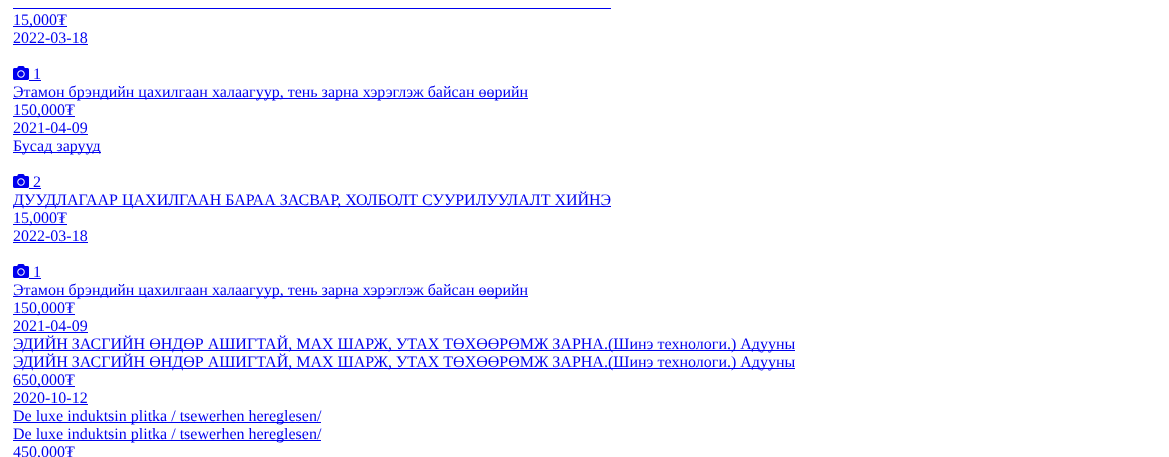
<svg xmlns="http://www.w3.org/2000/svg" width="1169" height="457">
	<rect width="100%" height="100%" fill="#FFFFFF" />
	<rect x="13" y="8" width="598" height="1" fill="#0000EE" />
	<rect x="13" y="26" width="54" height="1" fill="#0000EE" />
	<g font-family="Liberation Serif" font-size="16" fill="#0000EE">
		<text x="13" y="25">15,000₮</text>
		<text x="13" y="43">2022-03-18</text>
	</g>
	<rect x="13" y="44" width="75" height="1" fill="#0000EE" />
	<image x="13" y="66" width="16" height="14" href="assets/img1.png" />
	<text x="33" y="79" font-family="Liberation Serif" font-size="16" fill="#0000EE">1</text>
	<rect x="29" y="80" width="12" height="1" fill="#0000EE" />
	<rect x="13" y="98" width="515" height="1" fill="#0000EE" />
	<text x="13" y="97" font-family="Liberation Serif" font-size="16" fill="#0000EE">Этамон брэндийн цахилгаан халаагуур, тень зарна хэрэглэж байсан өөрийн</text>
	<rect x="13" y="116" width="62" height="1" fill="#0000EE" />
	<g font-family="Liberation Serif" font-size="16" fill="#0000EE">
		<text x="13" y="115">150,000₮</text>
		<text x="13" y="133">2021-04-09</text>
	</g>
	<rect x="13" y="134" width="75" height="1" fill="#0000EE" />
	<rect x="13" y="152" width="88" height="1" fill="#0000EE" />
	<text x="13" y="151" font-family="Liberation Serif" font-size="16" fill="#0000EE">Бусад зарууд</text>
	<image x="13" y="174" width="16" height="14" href="assets/img1.png" />
	<text x="33" y="187" font-family="Liberation Serif" font-size="16" fill="#0000EE">2</text>
	<rect x="29" y="188" width="12" height="1" fill="#0000EE" />
	<rect x="13" y="206" width="598" height="1" fill="#0000EE" />
	<text x="13" y="205" font-family="Liberation Serif" font-size="16" fill="#0000EE">ДУУДЛАГААР ЦАХИЛГААН БАРАА ЗАСВАР, ХОЛБОЛТ СУУРИЛУУЛАЛТ ХИЙНЭ</text>
	<rect x="13" y="224" width="54" height="1" fill="#0000EE" />
	<g font-family="Liberation Serif" font-size="16" fill="#0000EE">
		<text x="13" y="223">15,000₮</text>
		<text x="13" y="241">2022-03-18</text>
	</g>
	<rect x="13" y="242" width="75" height="1" fill="#0000EE" />
	<image x="13" y="264" width="16" height="14" href="assets/img1.png" />
	<text x="33" y="277" font-family="Liberation Serif" font-size="16" fill="#0000EE">1</text>
	<rect x="29" y="278" width="12" height="1" fill="#0000EE" />
	<rect x="13" y="296" width="515" height="1" fill="#0000EE" />
	<text x="13" y="295" font-family="Liberation Serif" font-size="16" fill="#0000EE">Этамон брэндийн цахилгаан халаагуур, тень зарна хэрэглэж байсан өөрийн</text>
	<rect x="13" y="314" width="62" height="1" fill="#0000EE" />
	<g font-family="Liberation Serif" font-size="16" fill="#0000EE">
		<text x="13" y="313">150,000₮</text>
		<text x="13" y="331">2021-04-09</text>
	</g>
	<rect x="13" y="332" width="75" height="1" fill="#0000EE" />
	<rect x="13" y="350" width="782" height="1" fill="#0000EE" />
	<text x="13" y="349" font-family="Liberation Serif" font-size="16" fill="#0000EE">ЭДИЙН ЗАСГИЙН ӨНДӨР АШИГТАЙ, МАХ ШАРЖ, УТАХ ТӨХӨӨРӨМЖ ЗАРНА.(Шинэ теxнологи.) Aдууны</text>
	<rect x="13" y="368" width="782" height="1" fill="#0000EE" />
	<text x="13" y="367" font-family="Liberation Serif" font-size="16" fill="#0000EE">ЭДИЙН ЗАСГИЙН ӨНДӨР АШИГТАЙ, МАХ ШАРЖ, УТАХ ТӨХӨӨРӨМЖ ЗАРНА.(Шинэ теxнологи.) Aдууны</text>
	<rect x="13" y="386" width="62" height="1" fill="#0000EE" />
	<g font-family="Liberation Serif" font-size="16" fill="#0000EE">
		<text x="13" y="385">650,000₮</text>
		<text x="13" y="403">2020-10-12</text>
	</g>
	<rect x="13" y="404" width="75" height="1" fill="#0000EE" />
	<rect x="13" y="422" width="308" height="1" fill="#0000EE" />
	<text x="13" y="421" font-family="Liberation Serif" font-size="16" fill="#0000EE">De luxe induktsin plitka / tsewerhen hereglesen/</text>
	<rect x="13" y="440" width="308" height="1" fill="#0000EE" />
	<g font-family="Liberation Serif" font-size="16" fill="#0000EE">
		<text x="13" y="439">De luxe induktsin plitka / tsewerhen hereglesen/</text>
		<text x="13" y="457">450,000₮</text>
	</g>
</svg>
